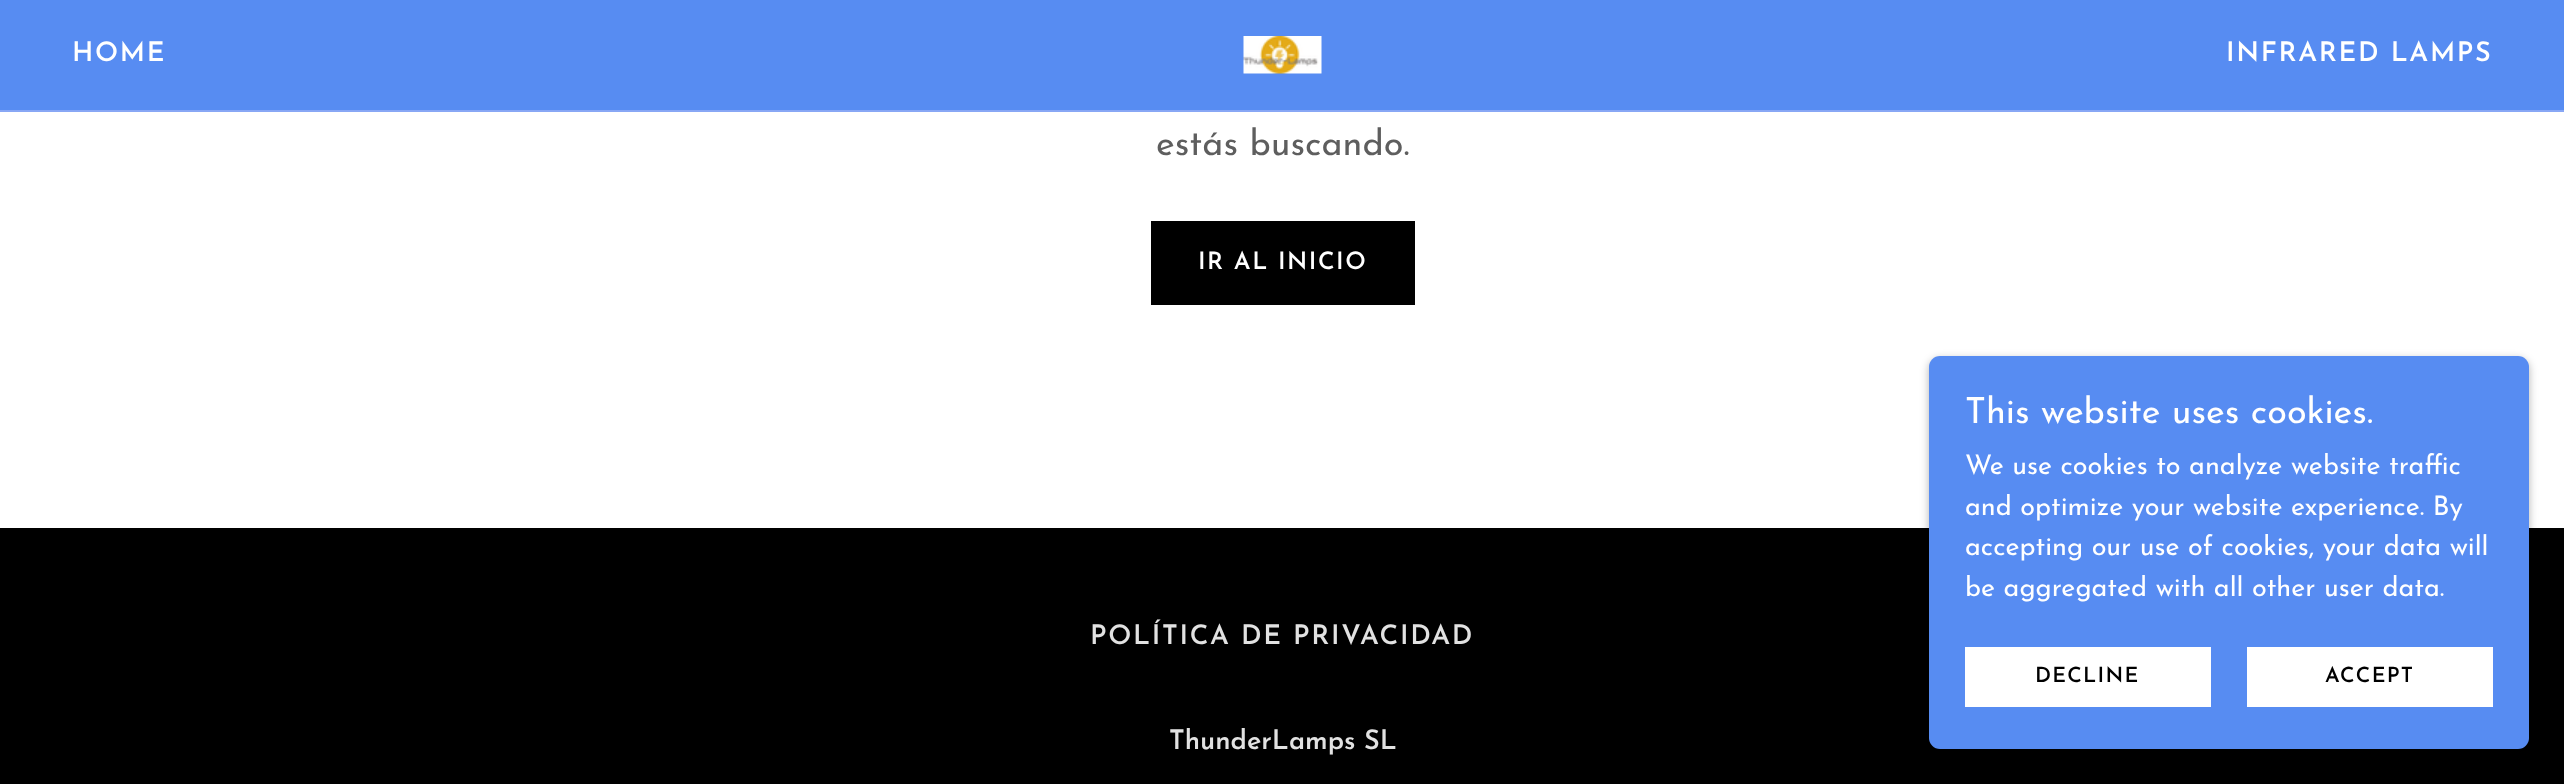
<svg xmlns="http://www.w3.org/2000/svg" width="2564" height="784">
	<rect width="100%" height="100%" fill="#000000" />
	<rect x="0" y="0" width="2564" height="110" fill="#578CF2" />
	<text x="72" y="61" font-family="Josefin Sans" font-size="27" font-weight="600" letter-spacing="1.7" fill="#FFFFFF">HOME</text>
	<image x="1243" y="36" width="79" height="38" href="assets/img1.png" />
	<text x="2226" y="61" font-family="Josefin Sans" font-size="27" font-weight="600" letter-spacing="1.7" fill="#FFFFFF">INFRARED LAMPS</text>
	<rect x="0" y="110" width="2564" height="2" fill="#88A7F5" />
	<rect x="0" y="112" width="2564" height="416" fill="#FFFFFF" />
	<text x="1156" y="155" font-family="Josefin Sans" font-size="36" fill="#5E5E5E">estás buscando.</text>
	<rect x="1151" y="221" width="264" height="84" fill="#000000" />
	<text x="1198" y="269" font-family="Josefin Sans" font-size="24" font-weight="600" letter-spacing="1.5" fill="#FFFFFF">IR AL INICIO</text>
	<text x="1090" y="644" font-family="Josefin Sans" font-size="27" font-weight="600" letter-spacing="1.7" fill="#E2E2E2">POLÍTICA DE PRIVACIDAD</text>
	<text x="1169" y="749" font-family="Josefin Sans" font-size="27" font-weight="600" fill="#E2E2E2">ThunderLamps SL</text>
	<rect x="1929" y="359" width="600" height="393" rx="11" fill="#000000" fill-opacity="0.3" filter="blur(4.5px)" />
	<rect x="1929" y="356" width="600" height="393" rx="11" fill="#578CF2" />
	<text x="1965" y="423" font-family="Josefin Sans" font-size="36" fill="#FFFFFF">This website uses cookies.</text>
	<g font-family="Josefin Sans" font-size="27" fill="#FFFFFF">
		<text x="1965" y="474">We use cookies to analyze website traffic</text>
		<text x="1965" y="515">and optimize your website experience. By</text>
		<text x="1965" y="555">accepting our use of cookies, your data will</text>
		<text x="1965" y="596">be aggregated with all other user data.</text>
	</g>
	<rect x="1965" y="647" width="246" height="60" fill="#FFFFFF" />
	<text x="2035" y="682" font-family="Josefin Sans" font-size="21" font-weight="600" letter-spacing="1.25" fill="#000000">DECLINE</text>
	<rect x="2247" y="647" width="246" height="60" fill="#FFFFFF" />
	<text x="2325" y="682" font-family="Josefin Sans" font-size="21" font-weight="600" letter-spacing="1.25" fill="#000000">ACCEPT</text>
</svg>
